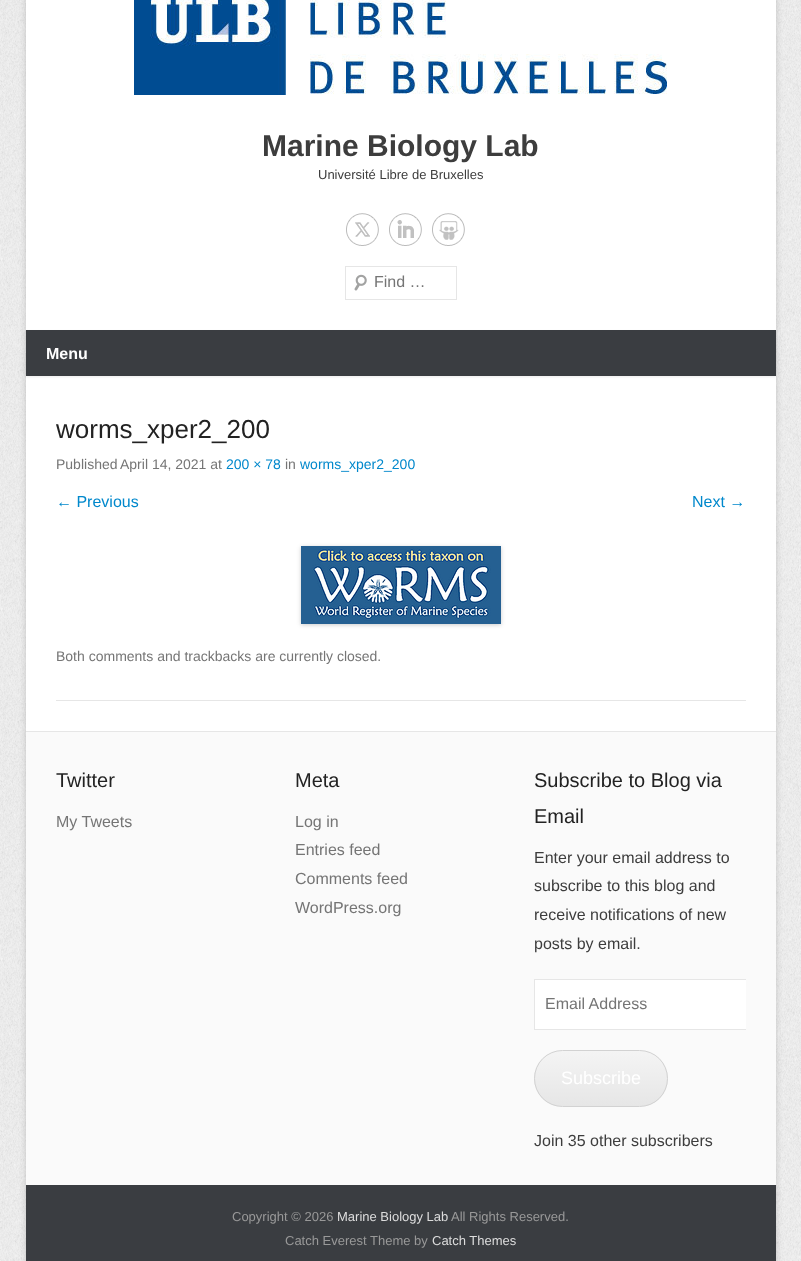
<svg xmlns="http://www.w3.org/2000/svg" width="801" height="1261">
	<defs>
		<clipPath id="clip1"><path d="M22 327H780V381H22ZM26 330H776V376H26Z" clip-rule="evenodd" /></clipPath>
		<clipPath id="clip2"><rect x="56" y="732" width="690" height="453" /></clipPath>
		<clipPath id="clip3"><rect x="534" y="1050" width="134" height="57" rx="28.5" /></clipPath>
		<linearGradient id="g1" gradientUnits="userSpaceOnUse" x1="601" y1="1051" x2="601" y2="1106"><stop offset="0" stop-color="#F4F4F4" /><stop offset="1" stop-color="#E6E6E6" /></linearGradient>
	</defs>
	<rect width="100%" height="100%" fill="#FFFFFF" />
	<image x="0" y="0" width="801" height="1261" href="assets/img1.png" />
	<rect x="26" y="-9" width="750" height="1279" fill="#646464" fill-opacity="0.3" filter="blur(3px)" />
	<rect x="26" y="0" width="750" height="731" fill="#FFFFFF" />
	<image x="134" y="0" width="533" height="95" href="assets/img2.png" />
	<text x="262" y="156" font-family="Liberation Sans" font-size="30" font-weight="700" fill="#3D3D3D">Marine Biology Lab</text>
	<text x="318" y="179" font-family="Liberation Sans" font-size="13" fill="#3D3D3D">Université Libre de Bruxelles</text>
	<image x="346" y="213" width="33" height="33" href="assets/img3.png" />
	<image x="389" y="213" width="33" height="33" href="assets/img4.png" />
	<image x="432" y="213" width="33" height="33" href="assets/img5.png" />
	<image x="354" y="274" width="13" height="17" href="assets/img6.png" />
	<rect x="345.5" y="266.5" width="111" height="33" fill="none" stroke="#E6E6E6" />
	<text x="374" y="287" font-family="Liberation Sans" font-size="16" fill="#757575">Find …</text>
	<rect x="26" y="330" width="750" height="46" fill="#3A3D41" />
	<g clip-path="url(#clip1)">
		<rect x="26" y="331" width="750" height="46" fill="#404040" fill-opacity="0.1" filter="blur(1px)" />
	</g>
	<text x="46" y="359" font-family="Liberation Sans" font-size="16" font-weight="700" fill="#FFFFFF">Menu</text>
	<rect x="56" y="700" width="690" height="1" fill="#E6E6E6" />
	<text x="56" y="438" font-family="Liberation Sans" font-size="26" fill="#222222">worms_xper2_200</text>
	<g font-family="Liberation Sans" font-size="14" fill="#757575">
		<text x="56" y="469">Published</text>
		<text x="120" y="469">April 14, 2021 at</text>
	</g>
	<text x="226" y="469" font-family="Liberation Sans" font-size="14" fill="#0088CC">200 × 78</text>
	<text x="285" y="469" font-family="Liberation Sans" font-size="14" fill="#757575">in</text>
	<text x="300" y="469" font-family="Liberation Sans" font-size="14" fill="#0088CC">worms_xper2_200</text>
	<g font-family="Liberation Sans" font-size="16" fill="#0088CC">
		<text x="56" y="507">← Previous</text>
		<text x="692" y="507">Next →</text>
	</g>
	<rect x="301" y="547" width="200" height="78" fill="#000000" fill-opacity="0.2" filter="blur(2px)" />
	<image x="301" y="546" width="200" height="78" href="assets/img7.png" />
	<text x="56" y="661" font-family="Liberation Sans" font-size="14" fill="#757575">Both comments and trackbacks are currently closed.</text>
	<rect x="26" y="732" width="750" height="453" fill="#FAFAFA" />
	<rect x="26" y="731" width="750" height="1" fill="#E6E6E6" />
	<text x="56" y="787" font-family="Liberation Sans" font-size="20" fill="#222222">Twitter</text>
	<text x="56" y="827" font-family="Liberation Sans" font-size="16" fill="#757575">My Tweets</text>
	<text x="295" y="787" font-family="Liberation Sans" font-size="20" fill="#222222">Meta</text>
	<g font-family="Liberation Sans" font-size="16" fill="#757575">
		<text x="295" y="827">Log in</text>
		<text x="295" y="855">Entries feed</text>
		<text x="295" y="884">Comments feed</text>
		<text x="295" y="913">WordPress.org</text>
	</g>
	<g font-family="Liberation Sans" font-size="20" fill="#222222">
		<text x="534" y="787">Subscribe to Blog via</text>
		<text x="534" y="823">Email</text>
	</g>
	<g font-family="Liberation Sans" font-size="16" fill="#3D3D3D">
		<text x="534" y="863">Enter your email address to</text>
		<text x="534" y="891">subscribe to this blog and</text>
		<text x="534" y="920">receive notifications of new</text>
		<text x="534" y="949">posts by email.</text>
	</g>
	<rect x="535" y="980" width="211" height="49" fill="#FFFFFF" />
	<g clip-path="url(#clip2)">
		<rect x="534.5" y="979.5" width="222" height="50" fill="none" stroke="#E6E6E6" />
	</g>
	<text x="545" y="1009" font-family="Liberation Sans" font-size="16" fill="#757575">Email Address</text>
	<g clip-path="url(#clip3)">
		<rect x="534" y="1051" width="134" height="55" fill="url(#g1)" />
	</g>
	<rect x="534.5" y="1050.5" width="133" height="56" rx="28" fill="none" stroke="#D2D2D2" />
	<text x="561" y="1084" font-family="Liberation Sans" font-size="18" fill="#FFFFFF">Subscribe</text>
	<text x="534" y="1146" font-family="Liberation Sans" font-size="16" fill="#3D3D3D">Join 35 other subscribers</text>
	<rect x="26" y="1185" width="750" height="76" fill="#3A3D41" />
	<text x="232" y="1221" font-family="Liberation Sans" font-size="13" fill="#999999">Copyright © 2026</text>
	<text x="337" y="1221" font-family="Liberation Sans" font-size="13" fill="#DDDDDD">Marine Biology Lab</text>
	<g font-family="Liberation Sans" font-size="13" fill="#999999">
		<text x="451" y="1221">All Rights Reserved.</text>
		<text x="285" y="1245">Catch Everest Theme by</text>
	</g>
	<text x="432" y="1245" font-family="Liberation Sans" font-size="13" fill="#DDDDDD">Catch Themes</text>
</svg>
